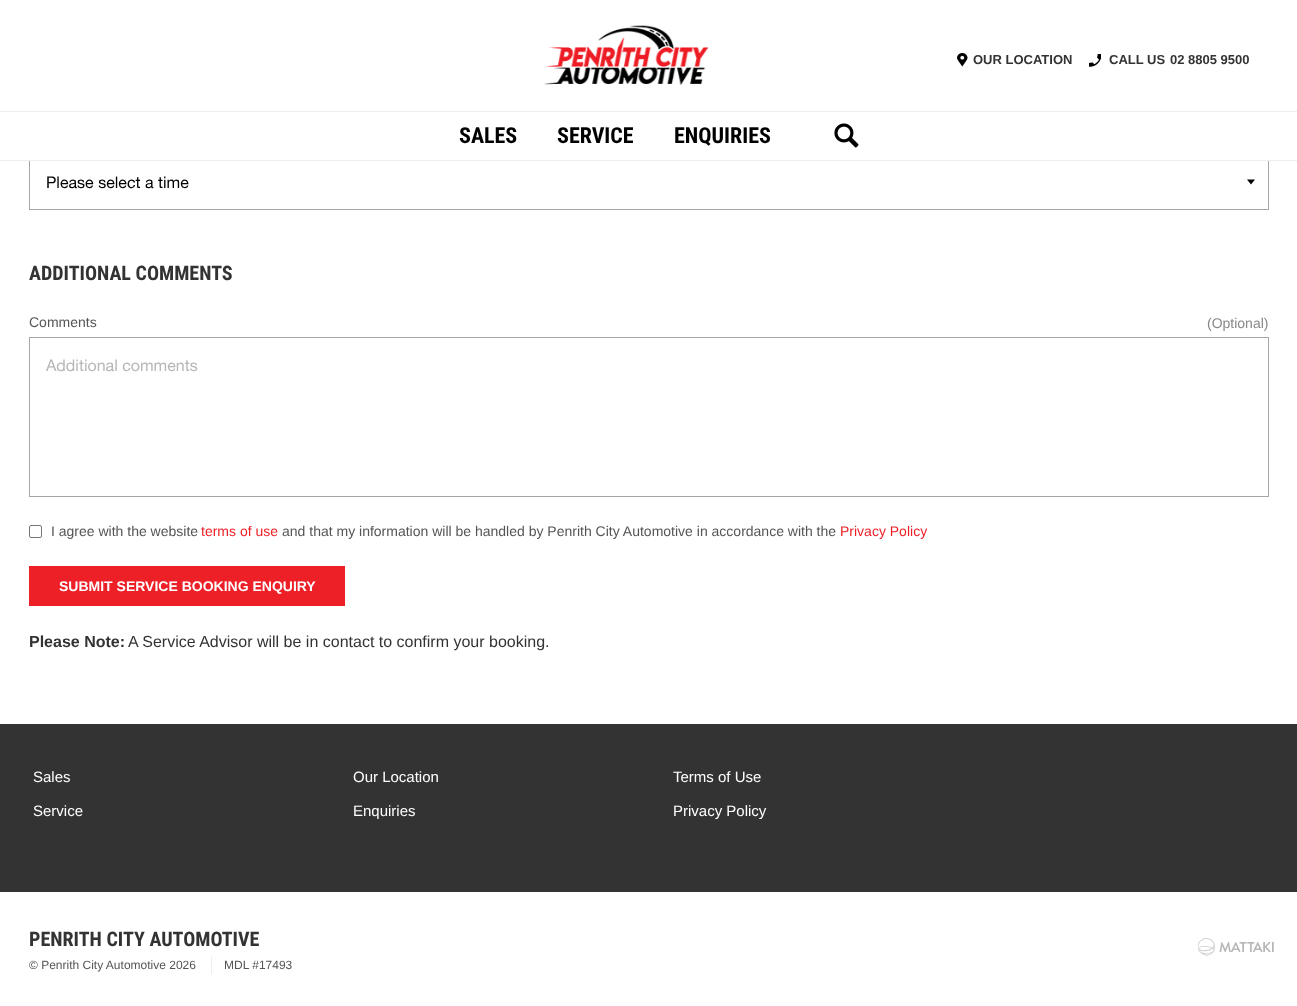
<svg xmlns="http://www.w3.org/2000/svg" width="1297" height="1006">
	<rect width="100%" height="100%" fill="#FFFFFF" />
	<rect x="0" y="111" width="1297" height="1" fill="#EEEEEE" />
	<image x="544" y="25" width="165" height="60" href="assets/img1.png" />
	<path d="M1255 179.5L1251 184.5L1247 179.5Z" fill="#000000" />
	<rect x="29.5" y="154.5" width="1239" height="55" fill="none" stroke="#A6A6A6" />
	<rect x="29" y="154" width="1240" height="6" fill="#FFFFFF" />
	<rect x="0" y="160" width="1297" height="1" fill="#EEEEEE" />
	<image x="957" y="53" width="11" height="14" href="assets/img2.png" />
	<text x="973" y="64" font-family="Liberation Sans" font-size="13" font-weight="700" fill="#333333">OUR LOCATION</text>
	<image x="1089" y="54" width="12" height="13" href="assets/img3.png" />
	<g font-family="Liberation Sans" font-size="13" font-weight="700" fill="#333333">
		<text x="1109" y="64">CALL US</text>
		<text x="1170" y="64">02 8805 9500</text>
	</g>
	<g font-family="Roboto Condensed" font-size="22" font-weight="700" fill="#000000">
		<text x="459" y="143">SALES</text>
		<text x="557" y="143">SERVICE</text>
		<text x="674" y="143">ENQUIRIES</text>
	</g>
	<image x="834" y="123" width="25" height="25" href="assets/img4.png" />
	<text x="46" y="188" font-family="Helvetica Neue" font-size="16" fill="#000000">Please select a time</text>
	<text x="29" y="280" font-family="Roboto Condensed" font-size="20" font-weight="700" fill="#333333">ADDITIONAL COMMENTS</text>
	<text x="29" y="327" font-family="Liberation Sans" font-size="14" fill="#555555">Comments</text>
	<text x="1207" y="328" font-family="Liberation Sans" font-size="14" fill="#888888">(Optional)</text>
	<rect x="29.5" y="337.5" width="1239" height="159" fill="none" stroke="#A6A6A6" />
	<text x="46" y="371" font-family="Helvetica Neue" font-size="16" fill="#B7B7B7">Additional comments</text>
	<rect x="29.5" y="525.5" width="12" height="12" rx="1.5" fill="none" stroke="#767676" />
	<text x="51" y="536" font-family="Liberation Sans" font-size="14" fill="#555555">I agree with the website</text>
	<text x="201" y="536" font-family="Liberation Sans" font-size="14" fill="#ED1F27">terms of use</text>
	<text x="282" y="536" font-family="Liberation Sans" font-size="14" fill="#555555">and that my information will be handled by Penrith City Automotive in accordance with the</text>
	<text x="840" y="536" font-family="Liberation Sans" font-size="14" fill="#ED1F27">Privacy Policy</text>
	<rect x="29" y="566" width="316" height="40" fill="#ED1F27" />
	<text x="59" y="591" font-family="Liberation Sans" font-size="14" font-weight="700" fill="#FFFFFF">SUBMIT SERVICE BOOKING ENQUIRY</text>
	<text x="29" y="647" font-family="Liberation Sans" font-size="16" font-weight="700" fill="#333333">Please Note:</text>
	<text x="128" y="647" font-family="Liberation Sans" font-size="16" fill="#333333">A Service Advisor will be in contact to confirm your booking.</text>
	<rect x="0" y="724" width="1297" height="168" fill="#333333" />
	<g font-family="Liberation Sans" font-size="15" fill="#FFFFFF">
		<text x="33" y="782">Sales</text>
		<text x="33" y="816">Service</text>
		<text x="353" y="782">Our Location</text>
		<text x="353" y="816">Enquiries</text>
		<text x="673" y="782">Terms of Use</text>
		<text x="673" y="816">Privacy Policy</text>
	</g>
	<text x="29" y="946" font-family="Roboto Condensed" font-size="20" font-weight="700" fill="#333333">PENRITH CITY AUTOMOTIVE</text>
	<text x="29" y="969" font-family="Liberation Sans" font-size="12" fill="#555555">© Penrith City Automotive 2026</text>
	<rect x="211" y="956" width="1" height="18" fill="#EEEEEE" />
	<text x="224" y="969" font-family="Liberation Sans" font-size="12" fill="#555555">MDL #17493</text>
	<image x="1198" y="938" width="76" height="18" href="assets/img5.png" />
</svg>
